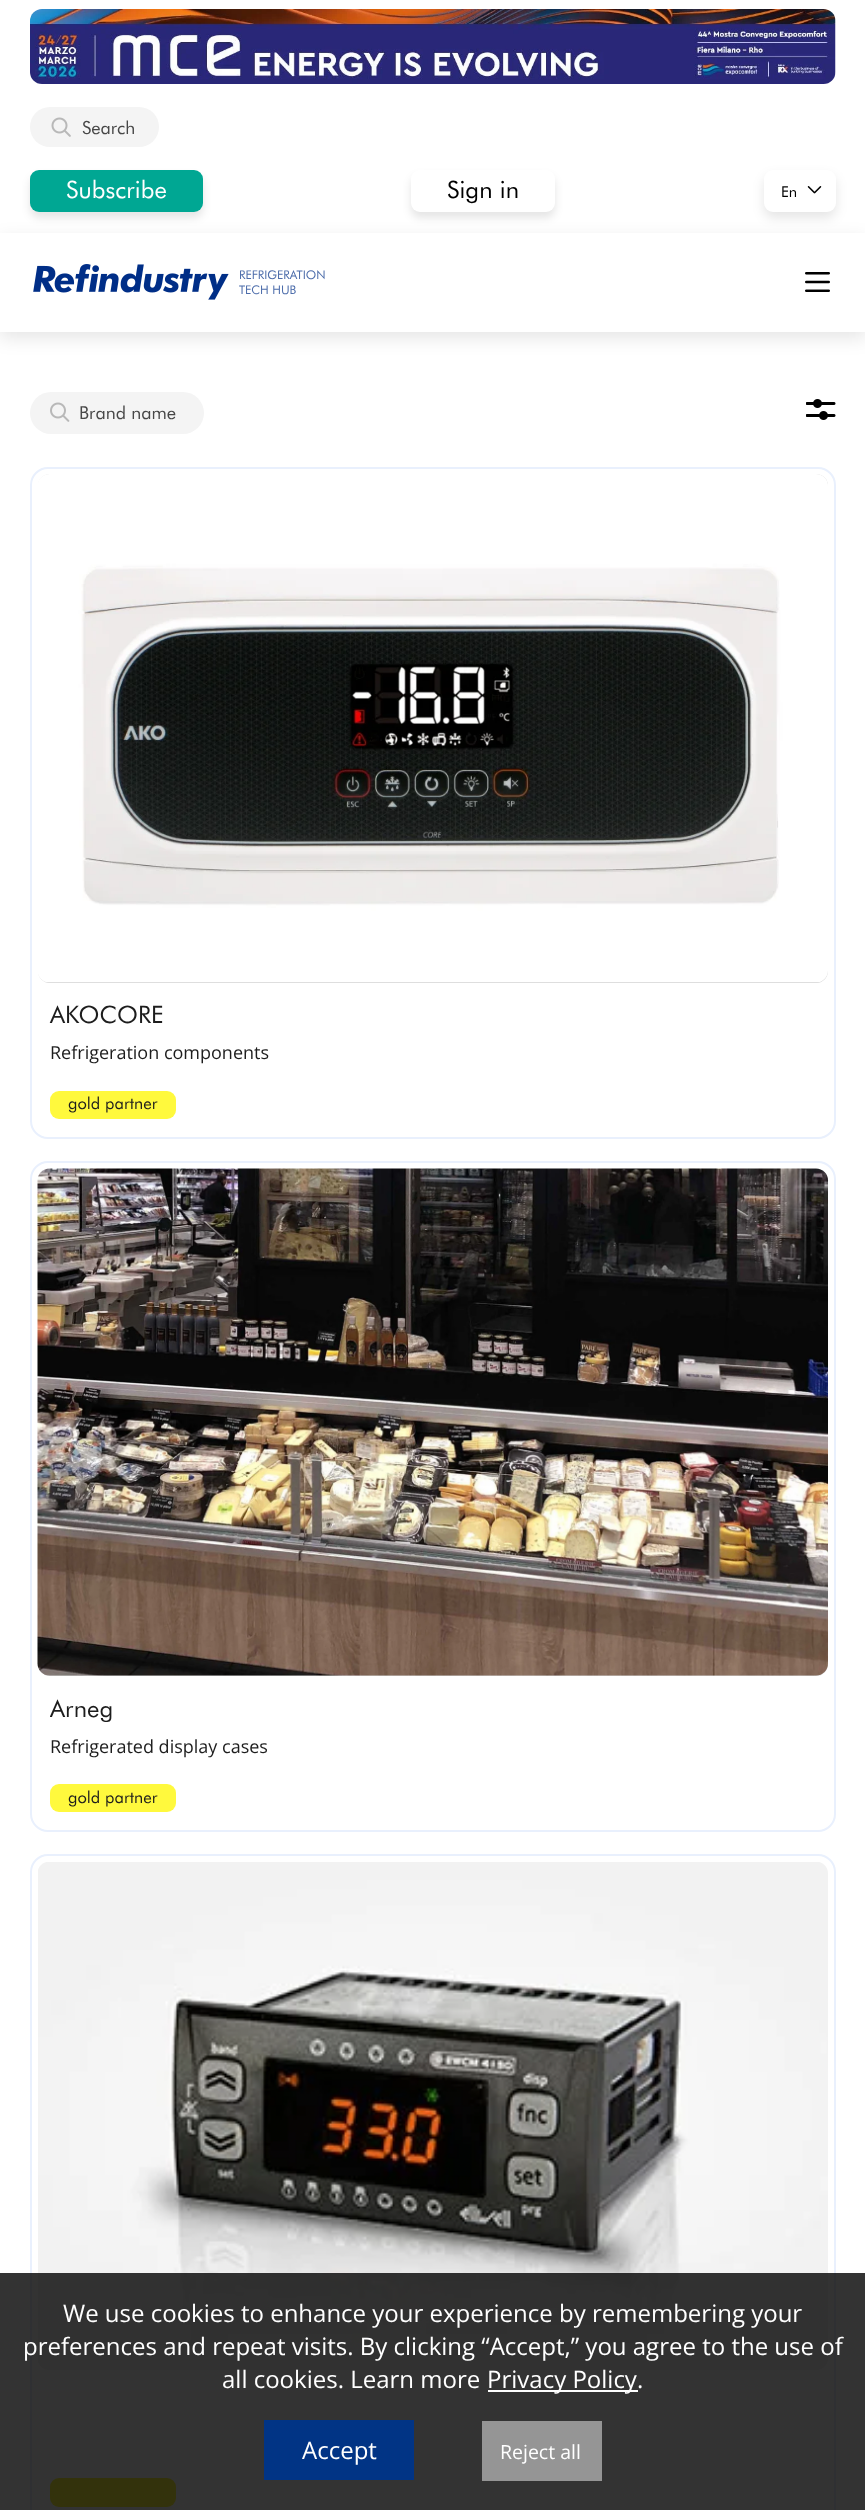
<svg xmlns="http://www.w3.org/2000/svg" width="865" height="2510">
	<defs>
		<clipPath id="clip1"><rect x="50" y="1694" width="217" height="28" /></clipPath>
	</defs>
	<rect width="100%" height="100%" fill="#FFFFFF" />
	<image x="30" y="9" width="806" height="75" href="assets/img1.png" />
	<rect x="30" y="107" width="129" height="40" rx="20" fill="#F4F4F4" />
	<image x="51" y="117" width="20" height="20" href="assets/img2.png" />
	<text x="82" y="134" font-family="Futura" font-size="18" fill="#474747">Search</text>
	<rect x="30" y="176" width="173" height="42" rx="9" fill="#000000" fill-opacity="0.1" filter="blur(4.5px)" />
	<rect x="0" y="239" width="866" height="99" fill="#000000" fill-opacity="0.1" filter="blur(9px)" />
	<rect x="30" y="170" width="173" height="42" rx="9" fill="#00A793" />
	<text x="66" y="198" font-family="Futura" font-size="24" letter-spacing="0.1" fill="#FFFFFF">Subscribe</text>
	<rect x="411" y="176" width="144" height="42" rx="9" fill="#000000" fill-opacity="0.1" filter="blur(4.5px)" />
	<rect x="411" y="170" width="144" height="42" rx="9" fill="#FFFFFF" />
	<text x="447" y="198" font-family="Futura" font-size="24" letter-spacing="0.1" fill="#000000">Sign in</text>
	<rect x="0" y="233" width="865" height="99" fill="#FFFFFF" />
	<rect x="764" y="176" width="72" height="42" rx="9" fill="#000000" fill-opacity="0.1" filter="blur(6px)" />
	<rect x="764" y="170" width="72" height="42" rx="9" fill="#FFFFFF" />
	<text x="781" y="197" font-family="Futura" font-size="15" fill="#000000">En</text>
	<image x="807" y="186" width="15" height="8" href="assets/img3.png" />
	<image x="33" y="264" width="196" height="36" href="assets/img4.png" />
	<g font-family="Futura" font-size="12" fill="#4D6DAB">
		<text x="239" y="279">REFRIGERATION</text>
		<text x="239" y="294">TECH HUB</text>
	</g>
	<image x="805" y="272" width="25" height="20" href="assets/img5.png" />
	<rect x="30" y="392" width="174" height="42" rx="21" fill="#F4F4F4" />
	<image x="50" y="402" width="20" height="20" href="assets/img6.png" />
	<text x="79" y="419" font-family="Futura" font-size="18" fill="#474747">Brand name</text>
	<image x="806" y="399" width="30" height="21" href="assets/img7.png" />
	<rect x="31" y="468" width="804" height="670" rx="17" fill="none" stroke="#E9F0FD" stroke-width="2" />
	<rect x="38" y="474" width="790" height="509" rx="12" fill="#D3D3D3" />
	<image x="38" y="474" width="790" height="509" href="assets/img8.png" />
	<text x="50" y="1023" font-family="Futura" font-size="24" letter-spacing="0.1" fill="#1D1D1D">AKOCORE</text>
	<text x="50" y="1059" font-family="Open Sans" font-size="18" fill="#1D1D1D">Refrigeration components</text>
	<rect x="50" y="1091" width="126" height="28" rx="9" fill="#FFF93D" />
	<text x="68" y="1109" font-family="Futura" font-size="16.5" fill="#1D1D1D">gold partner</text>
	<rect x="31" y="1162" width="804" height="669" rx="17" fill="none" stroke="#E9F0FD" stroke-width="2" />
	<rect x="38" y="1169" width="790" height="507" rx="12" fill="#D3D3D3" />
	<image x="37" y="1168" width="792" height="508" href="assets/img9.png" />
	<g clip-path="url(#clip1)">
		<text x="50" y="1717" font-family="Futura" font-size="24" letter-spacing="0.1" fill="#1D1D1D">Arneg</text>
	</g>
	<text x="50" y="1753" font-family="Open Sans" font-size="18" fill="#1D1D1D">Refrigerated display cases</text>
	<rect x="50" y="1784" width="126" height="28" rx="9" fill="#FFF93D" />
	<text x="68" y="1803" font-family="Futura" font-size="16.5" fill="#1D1D1D">gold partner</text>
	<rect x="31" y="1855" width="804" height="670" rx="17" fill="none" stroke="#E9F0FD" stroke-width="2" />
	<image x="38" y="1862" width="790" height="508" href="assets/img10.png" />
	<rect x="50" y="2478" width="126" height="29" rx="9" fill="#FFF93D" />
	<rect x="0" y="2273" width="865" height="237" fill="#000000" fill-opacity="0.8" />
	<g font-family="Open Sans" font-size="24" fill="#FFFFFF">
		<text x="63" y="2322">We use cookies to enhance your experience by remembering your</text>
		<text x="23" y="2355">preferences and repeat visits. By clicking “Accept,” you agree to the use of</text>
		<text x="222" y="2388">all cookies. Learn more</text>
	</g>
	<rect x="488" y="2390" width="150" height="2" fill="#FFFFFF" />
	<text x="487" y="2388" font-family="Open Sans" font-size="24" fill="#FFFFFF">Privacy Policy.</text>
	<rect x="264" y="2420" width="150" height="60" fill="#013485" />
	<text x="302" y="2459" font-family="Open Sans" font-size="24" fill="#FFFFFF">Accept</text>
	<rect x="482" y="2421" width="120" height="60" fill="#959595" />
	<text x="500" y="2459" font-family="Open Sans" font-size="19.5" fill="#FFFFFF">Reject all</text>
</svg>
